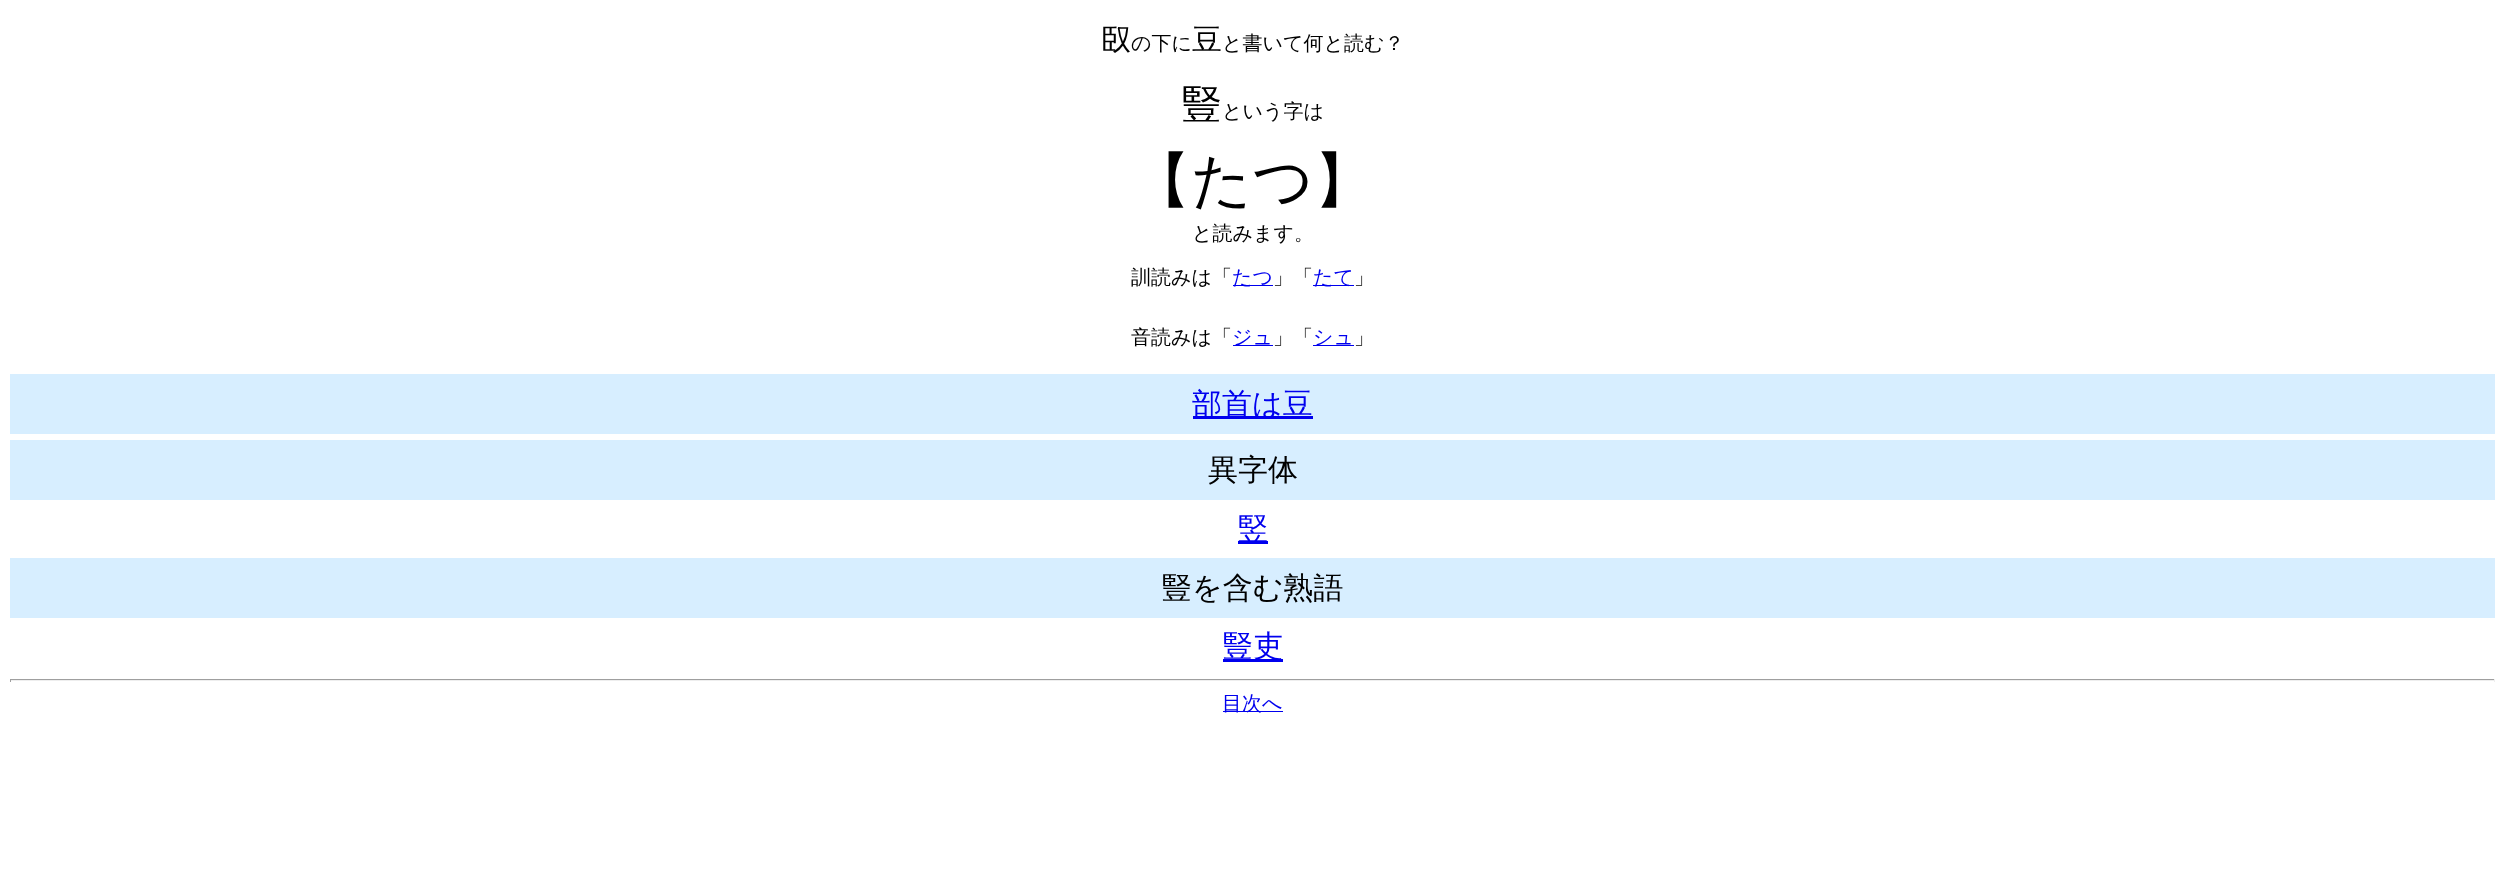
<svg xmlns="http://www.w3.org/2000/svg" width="2504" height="891">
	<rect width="100%" height="100%" fill="#FFFFFF" />
	<text x="1101" y="50" font-family="WenQuanYi Zen Hei" font-size="30" font-weight="500" fill="#000000">臤</text>
	<text x="1131" y="50" font-family="WenQuanYi Zen Hei" font-size="20" font-weight="500" fill="#000000">の下に</text>
	<text x="1192" y="50" font-family="WenQuanYi Zen Hei" font-size="30" font-weight="500" fill="#000000">豆</text>
	<text x="1222" y="50" font-family="WenQuanYi Zen Hei" font-size="20" font-weight="500" fill="#000000">と書いて何と読む？</text>
	<text x="1182" y="118" font-family="WenQuanYi Zen Hei" font-size="40" font-weight="500" fill="#000000">豎</text>
	<text x="1222" y="118" font-family="WenQuanYi Zen Hei" font-size="20" font-weight="500" fill="#000000">という字は</text>
	<text x="1131" y="201" font-family="WenQuanYi Zen Hei" font-size="60" font-weight="500" fill="#000000">【たつ】</text>
	<g font-family="WenQuanYi Zen Hei" font-size="20" font-weight="500" fill="#000000">
		<text x="1192" y="240">と読みます。</text>
		<text x="1131" y="284">訓読みは「</text>
	</g>
	<rect x="1233" y="285" width="40" height="1" fill="#0000EE" />
	<text x="1232" y="284" font-family="WenQuanYi Zen Hei" font-size="20" font-weight="500" fill="#0000EE">たつ</text>
	<text x="1273" y="284" font-family="WenQuanYi Zen Hei" font-size="20" font-weight="500" fill="#000000">」「</text>
	<rect x="1313" y="285" width="41" height="1" fill="#0000EE" />
	<text x="1313" y="284" font-family="WenQuanYi Zen Hei" font-size="20" font-weight="500" fill="#0000EE">たて</text>
	<g font-family="WenQuanYi Zen Hei" font-size="20" font-weight="500" fill="#000000">
		<text x="1354" y="284">」</text>
		<text x="1131" y="344">音読みは「</text>
	</g>
	<rect x="1233" y="345" width="40" height="1" fill="#0000EE" />
	<text x="1232" y="344" font-family="WenQuanYi Zen Hei" font-size="20" font-weight="500" fill="#0000EE">ジュ</text>
	<text x="1273" y="344" font-family="WenQuanYi Zen Hei" font-size="20" font-weight="500" fill="#000000">」「</text>
	<rect x="1313" y="345" width="41" height="1" fill="#0000EE" />
	<text x="1313" y="344" font-family="WenQuanYi Zen Hei" font-size="20" font-weight="500" fill="#0000EE">シュ</text>
	<text x="1354" y="344" font-family="WenQuanYi Zen Hei" font-size="20" font-weight="500" fill="#000000">」</text>
	<rect x="10" y="374" width="2485" height="60" fill="#D7EEFF" />
	<rect x="1193" y="416" width="120" height="3" fill="#0000EE" />
	<text x="1192" y="414" font-family="WenQuanYi Zen Hei" font-size="30" font-weight="500" fill="#0000EE">部首は豆</text>
	<rect x="10" y="440" width="2485" height="60" fill="#D7EEFF" />
	<text x="1208" y="480" font-family="WenQuanYi Zen Hei" font-size="30" font-weight="500" fill="#000000">異字体</text>
	<rect x="1238" y="541" width="30" height="3" fill="#0000EE" />
	<text x="1238" y="539" font-family="WenQuanYi Zen Hei" font-size="30" font-weight="500" fill="#0000EE">竪</text>
	<rect x="10" y="558" width="2485" height="60" fill="#D7EEFF" />
	<text x="1162" y="598" font-family="WenQuanYi Zen Hei" font-size="30" font-weight="500" fill="#000000">豎を含む熟語</text>
	<rect x="1223" y="659" width="60" height="3" fill="#0000EE" />
	<text x="1223" y="656" font-family="WenQuanYi Zen Hei" font-size="30" font-weight="500" fill="#0000EE">豎吏</text>
	<rect x="10" y="679" width="2485" height="1" fill="#9F9F9F" />
	<rect x="2494" y="679" width="1" height="3" fill="#EEEEEE" />
	<rect x="10" y="680" width="2485" height="1" fill="#EEEEEE" />
	<rect x="10" y="679" width="1" height="3" fill="#9F9F9F" />
	<rect x="1223" y="711" width="60" height="1" fill="#0000EE" />
	<text x="1222" y="710" font-family="WenQuanYi Zen Hei" font-size="20" font-weight="500" fill="#0000EE">目次へ</text>
</svg>
